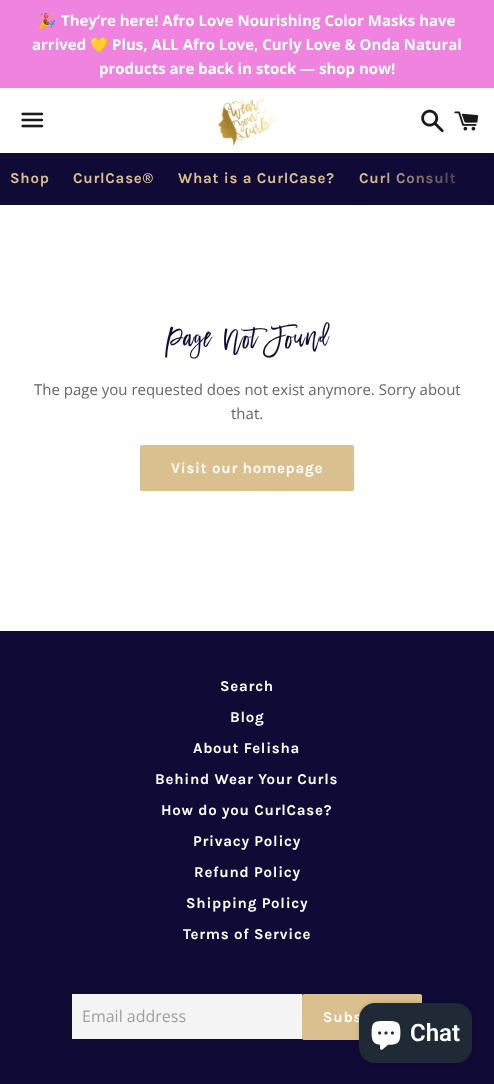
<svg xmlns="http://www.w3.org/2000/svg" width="494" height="1084">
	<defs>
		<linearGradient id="g1" gradientUnits="userSpaceOnUse" x1="369" y1="179" x2="494" y2="179"><stop offset="0" stop-color="#100A36" stop-opacity="0" /><stop offset="1" stop-color="#100A36" /></linearGradient>
	</defs>
	<rect width="100%" height="100%" fill="#FFFFFF" />
	<rect x="0" y="0" width="494" height="88" fill="#F083DF" />
	<text x="38" y="26" font-family="Noto Color Emoji" font-size="15" font-weight="700" fill="#FFFFFF">🎉</text>
	<g font-family="Open Sans" font-size="15" font-weight="700" fill="#FFFFFF">
		<text x="61" y="26">They’re here! Afro Love Nourishing Color Masks have</text>
		<text x="32" y="50">arrived</text>
	</g>
	<text x="90" y="50" font-family="Noto Color Emoji" font-size="15" font-weight="700" fill="#FFFFFF">💛</text>
	<g font-family="Open Sans" font-size="15" font-weight="700" fill="#FFFFFF">
		<text x="112" y="50">Plus, ALL Afro Love, Curly Love &amp; Onda Natural</text>
		<text x="99" y="74">products are back in stock — shop now!</text>
	</g>
	<image x="21" y="112" width="23" height="16" href="assets/img1.png" />
	<image x="218" y="97" width="59" height="49" href="assets/img2.png" />
	<image x="421" y="109" width="23" height="24" href="assets/img3.png" />
	<image x="454" y="111" width="25" height="20" href="assets/img4.png" />
	<rect x="0" y="153" width="493" height="52" fill="#100A36" />
	<text x="359" y="183" font-family="Karla" font-size="15" font-weight="700" letter-spacing="0.75" fill="#DAC08E">Curl Consult</text>
	<rect x="372" y="153" width="122" height="52" fill="url(#g1)" />
	<g font-family="Karla" font-size="15" font-weight="700" letter-spacing="0.75" fill="#DAC08E">
		<text x="10" y="183">Shop</text>
		<text x="73" y="183">CurlCase®</text>
		<text x="178" y="183">What is a CurlCase?</text>
	</g>
	<text x="166" y="345" font-family="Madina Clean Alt" font-size="25" letter-spacing="1.25" fill="#100A36">Page Not Found</text>
	<g font-family="Open Sans" font-size="15" fill="#666666">
		<text x="34" y="395">The page you requested does not exist anymore. Sorry about</text>
		<text x="231" y="419">that.</text>
	</g>
	<rect x="140" y="445" width="214" height="46" rx="2" fill="#DAC08E" />
	<text x="171" y="473" font-family="Karla" font-size="15" font-weight="700" letter-spacing="0.75" fill="#FFFFFF">Visit our homepage</text>
	<rect x="0" y="631" width="494" height="453" fill="#100A36" />
	<g font-family="Karla" font-size="15" font-weight="700" letter-spacing="0.75" fill="#FFFFFF">
		<text x="220" y="691">Search</text>
		<text x="230" y="722">Blog</text>
		<text x="193" y="753">About Felisha</text>
		<text x="155" y="784">Behind Wear Your Curls</text>
		<text x="161" y="815">How do you CurlCase?</text>
		<text x="193" y="846">Privacy Policy</text>
		<text x="194" y="877">Refund Policy</text>
		<text x="186" y="908">Shipping Policy</text>
		<text x="183" y="939">Terms of Service</text>
	</g>
	<rect x="72" y="994" width="230" height="45" fill="#F4F4F4" />
	<text x="82" y="1022" font-family="Open Sans" font-size="16" fill="#9F9F9F">Email address</text>
	<rect x="302" y="994" width="120" height="46" rx="2" fill="#DAC08E" />
	<text x="323" y="1022" font-family="Karla" font-size="15" font-weight="700" letter-spacing="0.75" fill="#FFFFFF">Subs</text>
	<rect x="359" y="1003" width="113" height="60" rx="16" fill="#000000" fill-opacity="0.15" filter="blur(2.5px)" />
	<rect x="359" y="1003" width="113" height="60" rx="16" fill="#202A36" />
	<image x="371" y="1021" width="30" height="29" href="assets/img5.png" />
	<text x="410" y="1041" font-family="Roboto" font-size="24" font-weight="600" fill="#FFFFFF">Chat</text>
</svg>
